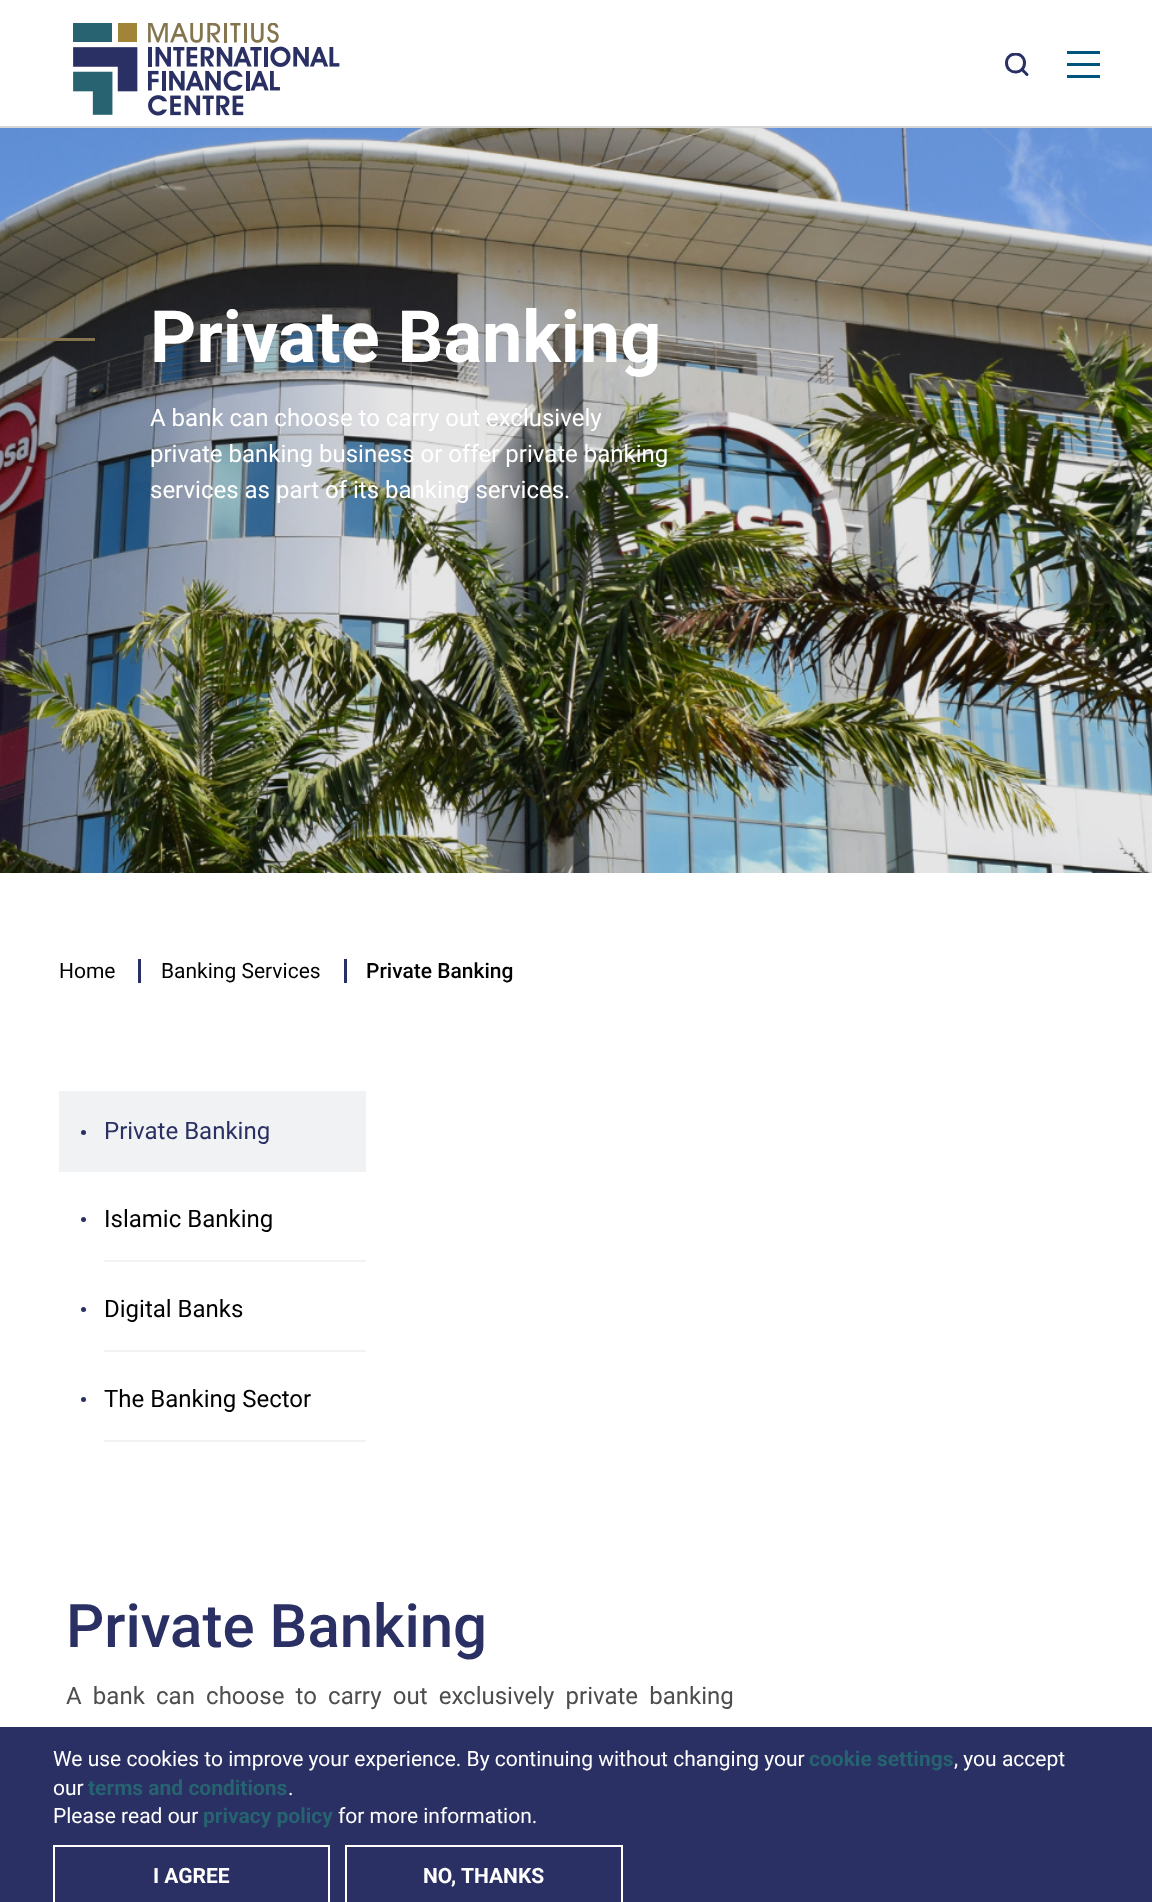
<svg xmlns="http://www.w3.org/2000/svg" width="1152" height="1902">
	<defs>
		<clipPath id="clip1"><rect x="1005" y="53" width="24" height="24" /></clipPath>
	</defs>
	<rect width="100%" height="100%" fill="#FFFFFF" />
	<image x="73" y="23" width="267" height="93" href="assets/img1.png" />
	<g clip-path="url(#clip1)">
		<path d="M1024.5 63C1024.5 75 1006.5 75 1006.5 63C1006.5 51 1024.5 51 1024.5 63Z" fill="none" stroke="#2A3063" stroke-width="3" stroke-linecap="round" stroke-linejoin="round" />
	</g>
	<path d="M1027 74.5L1022 69.5" fill="none" stroke="#2A3063" stroke-width="3" stroke-linecap="round" stroke-linejoin="round" />
	<rect x="1067" y="51" width="33" height="3" fill="#00537A" />
	<rect x="1067" y="63" width="33" height="3" fill="#00537A" />
	<rect x="1067" y="75" width="33" height="3" fill="#00537A" />
	<rect x="0" y="126" width="1152" height="2" fill="#D5D5D5" />
	<image x="0" y="128" width="1152" height="745" href="assets/img2.png" />
	<rect x="0" y="338" width="95" height="3" fill="#84754E" />
	<text x="150" y="362" font-family="Roboto" font-size="72" font-weight="700" fill="#FFFFFF">Private Banking</text>
	<g font-family="Roboto" font-size="24" fill="#FFFFFF">
		<text x="150" y="426">A bank can choose to carry out exclusively</text>
		<text x="150" y="462">private banking business or offer private banking</text>
		<text x="150" y="498">services as part of its banking services.</text>
	</g>
	<rect x="138" y="959" width="3" height="24" fill="#2A3063" />
	<text x="59" y="978" font-family="Roboto" font-size="21" fill="#000000">Home</text>
	<rect x="344" y="959" width="3" height="24" fill="#2A3063" />
	<text x="161" y="978" font-family="Roboto" font-size="21" fill="#000000">Banking Services</text>
	<text x="366" y="978" font-family="Roboto" font-size="21" font-weight="500" fill="#000000">Private Banking</text>
	<rect x="59" y="1091" width="307" height="81" fill="#F1F2F3" />
	<circle cx="83.5" cy="1132.5" r="2.5" fill="#2A3063" />
	<text x="104" y="1139" font-family="Roboto" font-size="24" fill="#2A3063">Private Banking</text>
	<circle cx="83.5" cy="1219.5" r="2.5" fill="#2A3063" />
	<rect x="104" y="1260" width="262" height="2" fill="#F1F2F3" />
	<text x="104" y="1227" font-family="Roboto" font-size="24" fill="#000000">Islamic Banking</text>
	<circle cx="83.5" cy="1309.5" r="2.5" fill="#2A3063" />
	<rect x="104" y="1350" width="262" height="2" fill="#F1F2F3" />
	<text x="104" y="1317" font-family="Roboto" font-size="24" fill="#000000">Digital Banks</text>
	<circle cx="83.5" cy="1399.5" r="2.5" fill="#2A3063" />
	<rect x="104" y="1440" width="262" height="2" fill="#F1F2F3" />
	<text x="104" y="1407" font-family="Roboto" font-size="24" fill="#000000">The Banking Sector</text>
	<text x="66" y="1647" font-family="Roboto" font-size="60" font-weight="500" fill="#2A3063">Private Banking</text>
	<text x="66" y="1704" word-spacing="5.25" font-family="Roboto" font-size="24" fill="#4D4D4D">A bank can choose to carry out exclusively private banking</text>
	<rect x="0" y="1727" width="1152" height="175" fill="#2A3063" />
	<text x="53" y="1766" font-family="Roboto" font-size="21" fill="#FFFFFF">We use cookies to improve your experience. By continuing without changing your</text>
	<text x="809" y="1766" font-family="Roboto" font-size="21" font-weight="700" fill="#276270">cookie settings</text>
	<g font-family="Roboto" font-size="21" fill="#FFFFFF">
		<text x="954" y="1766">, you accept</text>
		<text x="53" y="1795">our</text>
	</g>
	<text x="88" y="1795" font-family="Roboto" font-size="21" font-weight="700" fill="#276270">terms and conditions</text>
	<g font-family="Roboto" font-size="21" fill="#FFFFFF">
		<text x="288" y="1795">.</text>
		<text x="53" y="1823">Please read our</text>
	</g>
	<text x="203" y="1823" font-family="Roboto" font-size="21" font-weight="700" fill="#276270">privacy policy</text>
	<text x="338" y="1823" font-family="Roboto" font-size="21" fill="#FFFFFF">for more information.</text>
	<rect x="54" y="1846" width="275" height="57" fill="none" stroke="#FFFFFF" stroke-width="2" />
	<text x="153" y="1883" font-family="Roboto" font-size="21" font-weight="700" fill="#FFFFFF">I AGREE</text>
	<rect x="346" y="1846" width="276" height="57" fill="none" stroke="#FFFFFF" stroke-width="2" />
	<text x="423" y="1883" font-family="Roboto" font-size="21" font-weight="700" fill="#FFFFFF">NO, THANKS</text>
</svg>
